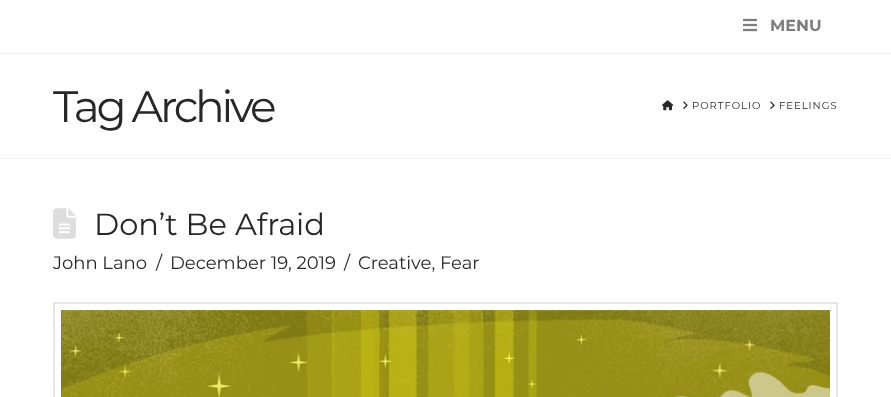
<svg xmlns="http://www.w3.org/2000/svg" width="891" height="397">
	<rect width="100%" height="100%" fill="#FFFFFF" />
	<image x="743" y="18" width="14" height="14" href="assets/img1.png" />
	<text x="770" y="31" font-family="Montserrat" font-size="16" font-weight="700" fill="#7C7C7C">MENU</text>
	<rect x="0" y="53" width="891" height="1" fill="#F2F2F2" />
	<rect x="0" y="158" width="891" height="1" fill="#F2F2F2" />
	<text x="53" y="122" font-family="Montserrat" font-size="44" letter-spacing="-3.25" fill="#272727">Tag Archive</text>
	<image x="662" y="100" width="12" height="11" href="assets/img2.png" />
	<image x="683" y="101" width="5" height="8" href="assets/img3.png" />
	<text x="692" y="109" font-family="Montserrat" font-size="10" letter-spacing="1" fill="#272727">PORTFOLIO</text>
	<image x="770" y="101" width="5" height="8" href="assets/img3.png" />
	<text x="779" y="109" font-family="Montserrat" font-size="10" letter-spacing="1" fill="#272727">FEELINGS</text>
	<image x="53" y="208" width="23" height="31" href="assets/img4.png" />
	<text x="94" y="235" font-family="Montserrat" font-size="30.5" fill="#272727">Don’t Be Afraid</text>
	<g font-family="Montserrat" font-size="18" fill="#272727">
		<text x="53" y="269">John Lano</text>
		<text x="156" y="269">/</text>
		<text x="170" y="269">December 19, 2019</text>
		<text x="344" y="269">/</text>
		<text x="358" y="269">Creative, Fear</text>
	</g>
	<rect x="54" y="303" width="783" height="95" fill="none" stroke="#E5E5E5" stroke-width="2" />
	<image x="61" y="310" width="769" height="87" href="assets/img5.png" />
</svg>
